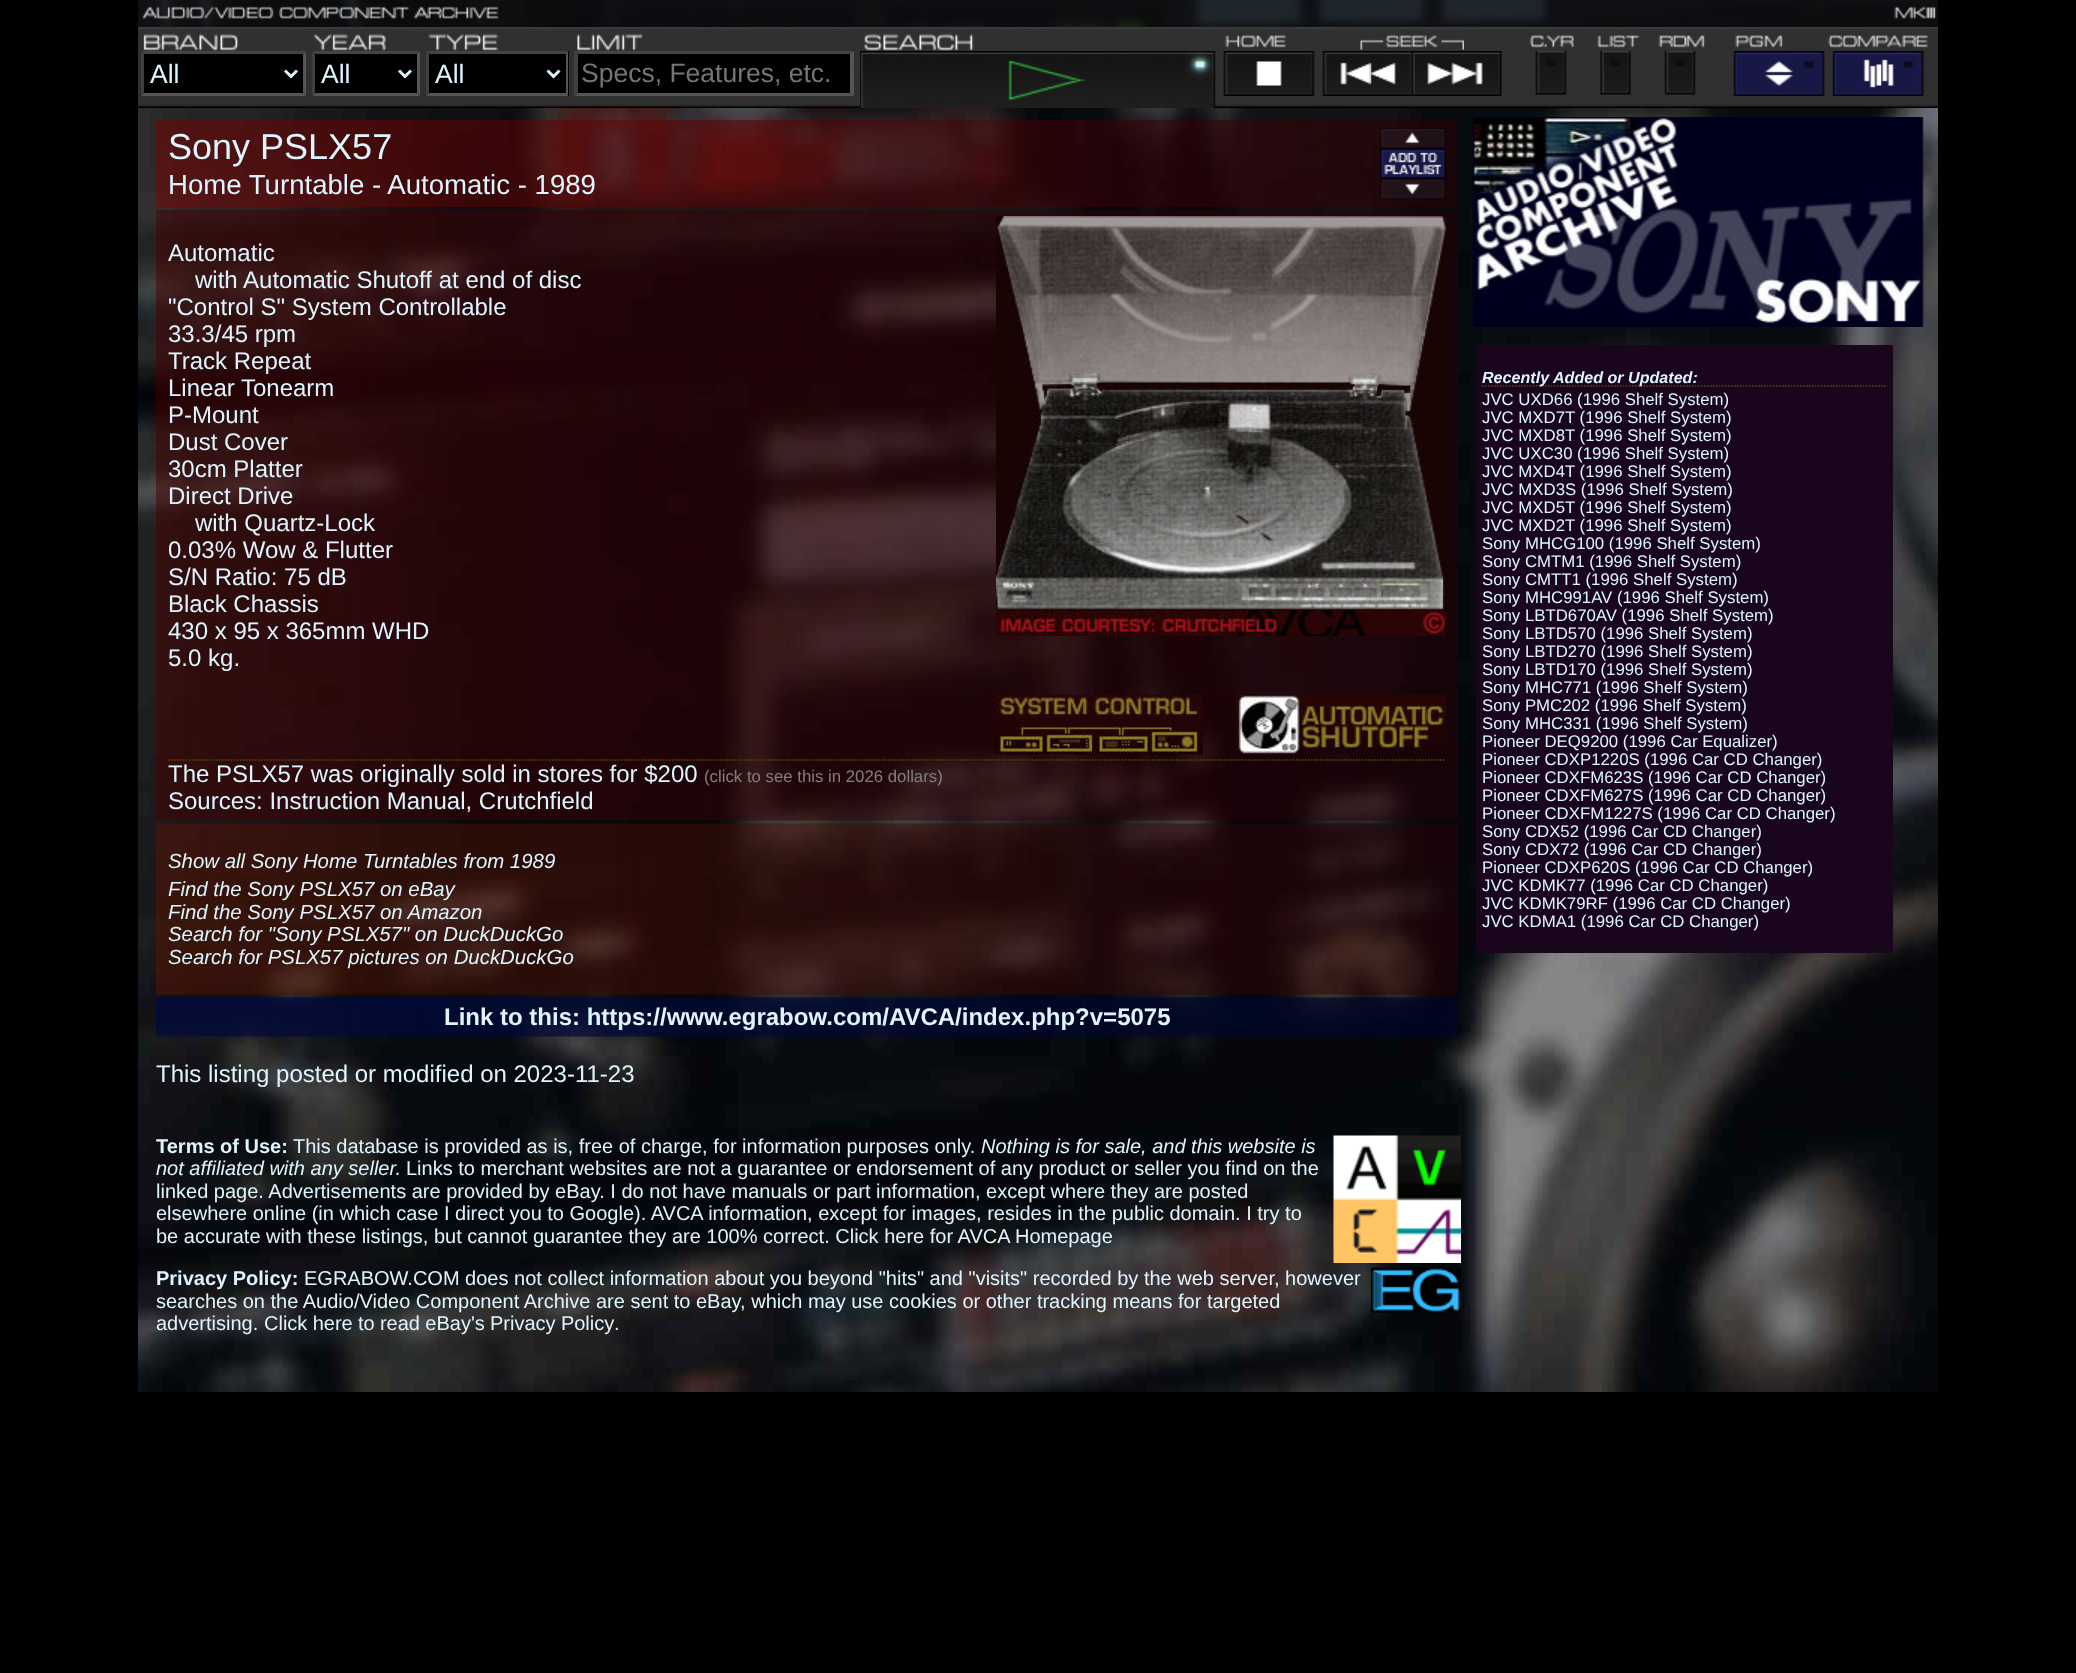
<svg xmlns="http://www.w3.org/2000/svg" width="2076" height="1673">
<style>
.a{font:26.5px Liberation Sans;fill:#def5ff}
.b{font:26.5px Liberation Sans;fill:#757575}
.c{font:36px Liberation Sans;fill:#def5ff}
.d{font:27.6px Liberation Sans;fill:#def5ff}
.e{font:24px Liberation Sans;fill:#def5ff}
.f{font:16.8px Liberation Sans;fill:#808080}
.g{font:italic 20.4px Liberation Sans;fill:#def5ff}
.h{font:bold 24px Liberation Sans;fill:#def5ff}
.i{font:bold 20px Liberation Sans;fill:#def5ff}
.j{font:20px Liberation Sans;fill:#def5ff}
.k{font:italic 20px Liberation Sans;fill:#def5ff}
.l{font:italic bold 16.1px Liberation Sans;fill:#def5ff}
.m{font:16.8px Liberation Sans;fill:#def5ff}
</style>
<rect width="100%" height="100%" fill="#000"/>
<image href="1.png" x="138" y="0" width="1800" height="27"/>
<image href="2.png" x="142" y="6" width="357" height="13"/>
<image href="3.png" x="1894" y="6" width="42" height="13"/>
<image href="4.png" x="138" y="27" width="1800" height="80"/>
<image href="5.png" x="143" y="33" width="96" height="18"/>
<image href="6.png" x="313" y="33" width="73" height="18"/>
<image href="7.png" x="428" y="33" width="71" height="18"/>
<image href="8.png" x="577" y="33" width="66" height="18"/>
<image href="9.png" x="863" y="33" width="111" height="18"/>
<image href="10.png" x="1225" y="34" width="61" height="14"/>
<image href="11.png" x="1360" y="34" width="104" height="16"/>
<image href="12.png" x="1529" y="34" width="45" height="14"/>
<image href="13.png" x="1597" y="34" width="43" height="14"/>
<image href="14.png" x="1658" y="35" width="47" height="13"/>
<image href="15.png" x="1735" y="34" width="48" height="14"/>
<image href="16.png" x="1828" y="34" width="100" height="14"/>
<path fill="#000" d="M141 51h165v45H141z"/>
<path fill="#444" d="M141 51h165l-3 3h-159z"/>
<path fill="#555" d="M306 51v45l-3-3v-39z"/>
<path fill="#555" d="M306 96h-165l3-3h159z"/>
<path fill="#404040" d="M141 96v-45l3 3v39z"/>
<path fill="none" stroke="#def5ff" stroke-width="3" d="M285 70.5l6 6l6-6"/>
<path fill="#000" d="M312 51h108v45H312z"/>
<path fill="#444" d="M312 51h108l-3 3h-102z"/>
<path fill="#555" d="M420 51v45l-3-3v-39z"/>
<path fill="#555" d="M420 96h-108l3-3h102z"/>
<path fill="#404040" d="M312 96v-45l3 3v39z"/>
<path fill="none" stroke="#def5ff" stroke-width="3" d="M399 70.5l6 6l6-6"/>
<path fill="#000" d="M426 51h143v45H426z"/>
<path fill="#444" d="M426 51h142l-2 3h-137z"/>
<path fill="#555" d="M568 51v45l-2-3v-39z"/>
<path fill="#555" d="M568 96h-142l3-3h137z"/>
<path fill="#404040" d="M426 96v-45l3 3v39z"/>
<path fill="none" stroke="#def5ff" stroke-width="3" d="M547.5 70.5l6 6l6-6"/>
<path fill="#000" d="M575 51h279v45H575z"/>
<path fill="#444" d="M574 51h280l-4 3h-272z"/>
<path fill="#555" d="M854 51v45l-4-3v-39z"/>
<path fill="#555" d="M854 96h-280l4-3h272z"/>
<path fill="#404040" d="M574 96v-45l4 3v39z"/>
<image href="17.png" x="860" y="51" width="356" height="57"/>
<image href="18.png" x="1223" y="51" width="92" height="45"/>
<image href="19.png" x="1322" y="51" width="90" height="45"/>
<image href="20.png" x="1411" y="51" width="91" height="45"/>
<image href="21.png" x="1535" y="51" width="32" height="44"/>
<image href="22.png" x="1600" y="51" width="31" height="44"/>
<image href="23.png" x="1664" y="51" width="32" height="44"/>
<image href="24.png" x="1733" y="51" width="92" height="45"/>
<image href="25.png" x="1832" y="51" width="92" height="45"/>
<image href="26.png" x="138" y="108" width="1800" height="1284"/>
<image href="27.png" x="156" y="120" width="1302" height="87"/>
<image href="28.png" x="1380" y="127" width="66" height="22"/>
<image href="29.png" x="1380" y="148" width="66" height="31"/>
<image href="30.png" x="1380" y="179" width="66" height="21"/>
<image href="31.png" x="156" y="210" width="1302" height="611"/>
<image href="32.png" x="996" y="216" width="450" height="420"/>
<image href="33.png" x="993" y="694" width="210" height="61"/>
<image href="34.png" x="1236" y="694" width="210" height="61"/>
<path fill="none" stroke="#594e00" stroke-width="1.5" stroke-dasharray="1.5 1.5" d="M168 760h1278"/>
<image href="35.png" x="156" y="823" width="1302" height="172"/>
<image href="36.png" x="156" y="997" width="1302" height="40"/>
<image href="37.png" x="1333" y="1135" width="128" height="128"/>
<image href="38.png" x="1371" y="1267" width="90" height="46"/>
<image href="39.png" x="1472" y="117" width="452" height="210"/>
<path fill="#1a061c" d="M1476 345h417v608H1476z"/>
<path fill="none" stroke="#594e00" stroke-width="1.5" stroke-dasharray="1.5 1.5" d="M1482 386h405"/>
<text class="a" x="150" y="83">All</text>
<text class="a" x="321" y="83">All</text>
<text class="a" x="435" y="83">All</text>
<text class="b" x="581" y="82">Specs, Features, etc.</text>
<text class="c" x="168" y="159">Sony PSLX57</text>
<text class="d" x="168" y="194">Home Turntable - Automatic - 1989</text>
<text class="e" x="168" y="261">Automatic</text>
<text class="e" x="195" y="288">with Automatic Shutoff at end of disc</text>
<text class="e" x="168" y="315">"Control S" System Controllable</text>
<text class="e" x="168" y="342">33.3/45 rpm</text>
<text class="e" x="168" y="369">Track Repeat</text>
<text class="e" x="168" y="396">Linear Tonearm</text>
<text class="e" x="168" y="423">P-Mount</text>
<text class="e" x="168" y="450">Dust Cover</text>
<text class="e" x="168" y="477">30cm Platter</text>
<text class="e" x="168" y="504">Direct Drive</text>
<text class="e" x="195" y="531">with Quartz-Lock</text>
<text class="e" x="168" y="558">0.03% Wow &amp; Flutter</text>
<text class="e" x="168" y="585">S/N Ratio: 75 dB</text>
<text class="e" x="168" y="612">Black Chassis</text>
<text class="e" x="168" y="639">430 x 95 x 365mm WHD</text>
<text class="e" x="168" y="666">5.0 kg.</text>
<text class="e" x="168" y="782">The PSLX57 was originally sold in stores for $200</text>
<text class="f" x="704" y="782">(click to see this in 2026 dollars)</text>
<text class="e" x="168" y="809">Sources: Instruction Manual, Crutchfield</text>
<text class="g" x="168" y="868">Show all Sony Home Turntables from 1989</text>
<text class="g" x="168" y="896">Find the Sony PSLX57 on eBay</text>
<text class="g" x="168" y="919">Find the Sony PSLX57 on Amazon</text>
<text class="g" x="168" y="941">Search for "Sony PSLX57" on DuckDuckGo</text>
<text class="g" x="168" y="964">Search for PSLX57 pictures on DuckDuckGo</text>
<text class="h" x="444" y="1025">Link to this: https://www.egrabow.com/AVCA/index.php?v=5075</text>
<text class="e" x="156" y="1082">This listing posted or modified on 2023-11-23</text>
<text class="i" x="156" y="1153">Terms of Use:</text>
<text class="j" x="293" y="1153">This database is provided as is, free of charge, for information purposes only.</text>
<text class="k" x="981" y="1153">Nothing is for sale, and this website is</text>
<text class="k" x="156" y="1175">not affiliated with any seller.</text>
<text class="j" x="406" y="1175">Links to merchant websites are not a guarantee or endorsement of any product or seller you find on the</text>
<text class="j" x="156" y="1198">linked page. Advertisements are provided by eBay. I do not have manuals or part information, except where they are posted</text>
<text class="j" x="156" y="1220">elsewhere online (in which case I direct you to Google). AVCA information, except for images, resides in the public domain. I try to</text>
<text class="j" x="156" y="1243">be accurate with these listings, but cannot guarantee they are 100% correct. Click here for AVCA Homepage</text>
<text class="i" x="156" y="1285">Privacy Policy:</text>
<text class="j" x="304" y="1285">EGRABOW.COM does not collect information about you beyond "hits" and "visits" recorded by the web server, however</text>
<text class="j" x="156" y="1308">searches on the Audio/Video Component Archive are sent to eBay, which may use cookies or other tracking means for targeted</text>
<text class="j" x="156" y="1330">advertising.</text>
<text class="j" x="264" y="1330" word-spacing="-0.25">Click here to read eBay's Privacy Policy</text>
<text class="j" x="614" y="1330">.</text>
<text class="l" x="1482" y="383">Recently Added or Updated:</text>
<text class="m" x="1482" y="405">JVC UXD66 (1996 Shelf System)</text>
<text class="m" x="1482" y="423">JVC MXD7T (1996 Shelf System)</text>
<text class="m" x="1482" y="441">JVC MXD8T (1996 Shelf System)</text>
<text class="m" x="1482" y="459">JVC UXC30 (1996 Shelf System)</text>
<text class="m" x="1482" y="477">JVC MXD4T (1996 Shelf System)</text>
<text class="m" x="1482" y="495">JVC MXD3S (1996 Shelf System)</text>
<text class="m" x="1482" y="513">JVC MXD5T (1996 Shelf System)</text>
<text class="m" x="1482" y="531">JVC MXD2T (1996 Shelf System)</text>
<text class="m" x="1482" y="549">Sony MHCG100 (1996 Shelf System)</text>
<text class="m" x="1482" y="567">Sony CMTM1 (1996 Shelf System)</text>
<text class="m" x="1482" y="585">Sony CMTT1 (1996 Shelf System)</text>
<text class="m" x="1482" y="603">Sony MHC991AV (1996 Shelf System)</text>
<text class="m" x="1482" y="621">Sony LBTD670AV (1996 Shelf System)</text>
<text class="m" x="1482" y="639">Sony LBTD570 (1996 Shelf System)</text>
<text class="m" x="1482" y="657">Sony LBTD270 (1996 Shelf System)</text>
<text class="m" x="1482" y="675">Sony LBTD170 (1996 Shelf System)</text>
<text class="m" x="1482" y="693">Sony MHC771 (1996 Shelf System)</text>
<text class="m" x="1482" y="711">Sony PMC202 (1996 Shelf System)</text>
<text class="m" x="1482" y="729">Sony MHC331 (1996 Shelf System)</text>
<text class="m" x="1482" y="747">Pioneer DEQ9200 (1996 Car Equalizer)</text>
<text class="m" x="1482" y="765">Pioneer CDXP1220S (1996 Car CD Changer)</text>
<text class="m" x="1482" y="783">Pioneer CDXFM623S (1996 Car CD Changer)</text>
<text class="m" x="1482" y="801">Pioneer CDXFM627S (1996 Car CD Changer)</text>
<text class="m" x="1482" y="819">Pioneer CDXFM1227S (1996 Car CD Changer)</text>
<text class="m" x="1482" y="837">Sony CDX52 (1996 Car CD Changer)</text>
<text class="m" x="1482" y="855">Sony CDX72 (1996 Car CD Changer)</text>
<text class="m" x="1482" y="873">Pioneer CDXP620S (1996 Car CD Changer)</text>
<text class="m" x="1482" y="891">JVC KDMK77 (1996 Car CD Changer)</text>
<text class="m" x="1482" y="909">JVC KDMK79RF (1996 Car CD Changer)</text>
<text class="m" x="1482" y="927">JVC KDMA1 (1996 Car CD Changer)</text>
</svg>
